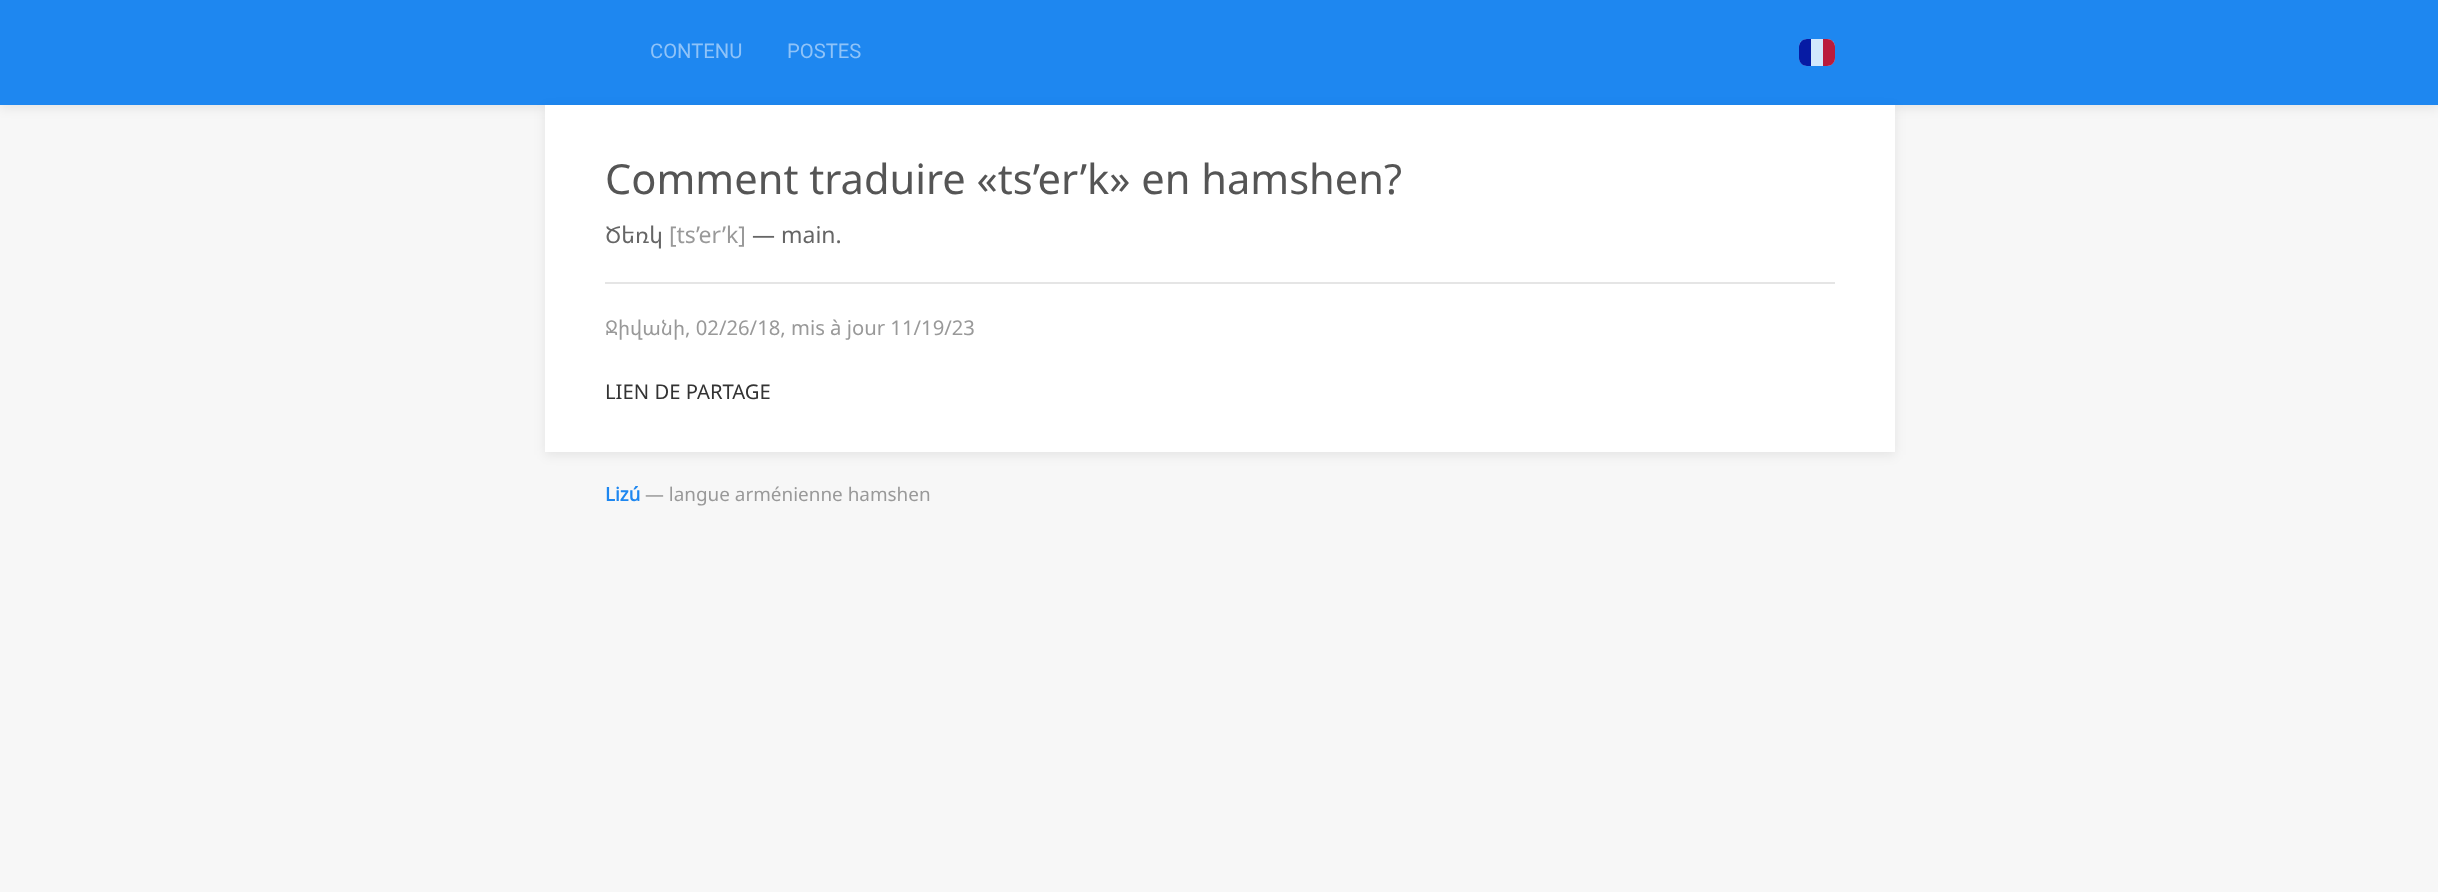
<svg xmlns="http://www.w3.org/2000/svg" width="2438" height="892">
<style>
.a{font:20.25px Roboto;fill:#8fc3f8}
.b{font:41.6px Noto Sans;fill:#555}
.c{font:23px Noto Sans;fill:#666}
.d{font:23px Noto Sans;fill:#999}
.e{font:20.25px Noto Sans;fill:#999}
.f{font:20.25px Noto Sans;fill:#333}
.g{font:bold 18.9px Noto Sans;fill:#1e87f0}
.h{font:18.9px Noto Sans;fill:#999}
</style>
<rect width="100%" height="100%" fill="#f7f7f7"/>
<path fill="#00000014" filter="blur(6px)" d="M0 3h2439v105H0z"/>
<path fill="#1e87f0" d="M0 0h2438v105H0z"/>
<rect fill="#d2e7fc" x="1799" y="39" width="36" height="27" rx="8"/>
<path fill="#061ba4" d="M1807 39h4v27h-4c-4.5 0-8-3.5-8-8v-11c0-4.5 3.5-8 8-8z"/>
<path fill="#ba1b3c" d="M1823 39h4c4.5 0 8 3.5 8 8v11c0 4.5-3.5 8-8 8h-4z"/>
<path fill="#00000014" filter="blur(6px)" d="M545 108h1350v347H545z"/>
<path fill="#fff" d="M545 105h1350v347H545z"/>
<path fill="#e5e5e5" d="M605 282h1230v2H605z"/>
<text class="a" x="650" y="58">CONTENU</text>
<text class="a" x="787" y="58">POSTES</text>
<text class="b" x="605" y="194">Comment traduire «ts’er’k» en hamshen?</text>
<text class="c" x="605" y="243">Ծեռկ</text>
<text class="d" x="669" y="243">[ts’er’k]</text>
<text class="c" x="752" y="243">— main.</text>
<text class="e" x="605" y="335">Ջիվանի, 02/26/18, mis à jour 11/19/23</text>
<text class="f" x="605" y="399">LIEN DE PARTAGE</text>
<text class="g" x="605" y="501">Lizú</text>
<text class="h" x="645" y="501">— langue arménienne hamshen</text>
</svg>
